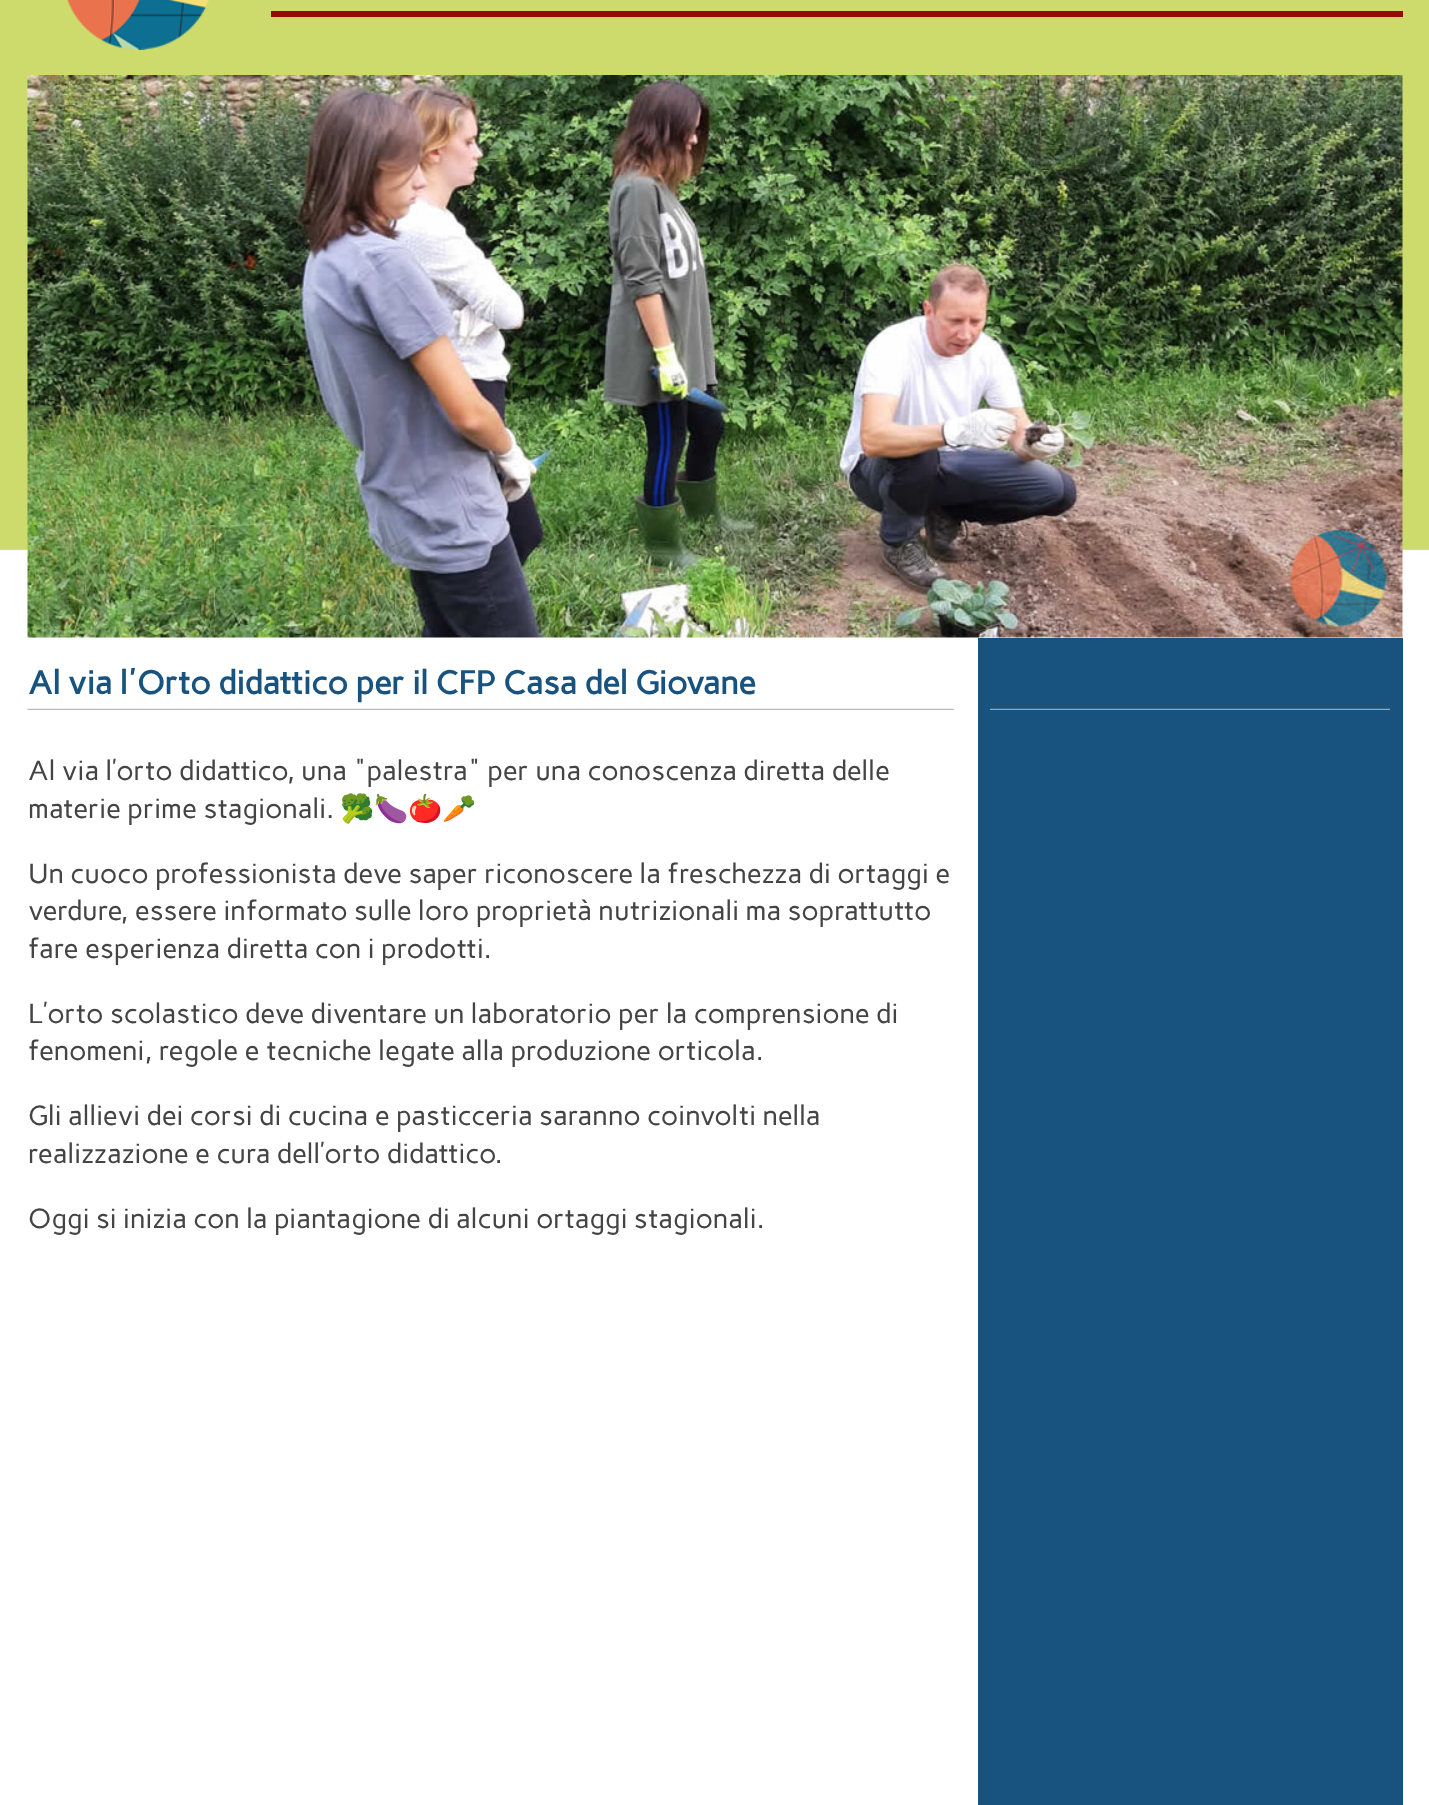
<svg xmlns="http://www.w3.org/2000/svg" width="1429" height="1805">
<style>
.a{font:bold 32.5px Carme;fill:#18537f}
.b{font:27.5px Carme;fill:#444}
.c{font:27.5px Noto Color Emoji;fill:#444}
</style>
<rect width="100%" height="100%" fill="#fff"/>
<image href="1.png" x="0" y="0" width="1429" height="1805"/>
<image href="2.png" x="67" y="0" width="142" height="50"/>
<path fill="#930c09" d="M271 11h1132v6H271z"/>
<image href="3.png" x="27" y="75" width="1376" height="563"/>
<image href="4.png" x="27" y="708" width="927" height="2"/>
<path fill="#18537f" d="M978 638h425v1167H978z"/>
<image href="5.png" x="990" y="708" width="400" height="2"/>
<text class="a" x="28" y="694">Al via l'Orto didattico per il CFP Casa del Giovane</text>
<text class="b" x="28" y="780">Al via l’orto didattico, una "palestra" per una conoscenza diretta delle</text>
<text class="b" x="28" y="818">materie prime stagionali.</text>
<text class="c" x="340" y="818">🥦🍆🍅🥕</text>
<text class="b" x="28" y="883">Un cuoco professionista deve saper riconoscere la freschezza di ortaggi e</text>
<text class="b" x="28" y="920">verdure, essere informato sulle loro proprietà nutrizionali ma soprattutto</text>
<text class="b" x="28" y="958">fare esperienza diretta con i prodotti.</text>
<text class="b" x="28" y="1023">L’orto scolastico deve diventare un laboratorio per la comprensione di</text>
<text class="b" x="28" y="1060">fenomeni, regole e tecniche legate alla produzione orticola.</text>
<text class="b" x="28" y="1125">Gli allievi dei corsi di cucina e pasticceria saranno coinvolti nella</text>
<text class="b" x="28" y="1163">realizzazione e cura dell’orto didattico.</text>
<text class="b" x="28" y="1228">Oggi si inizia con la piantagione di alcuni ortaggi stagionali.</text>
</svg>
